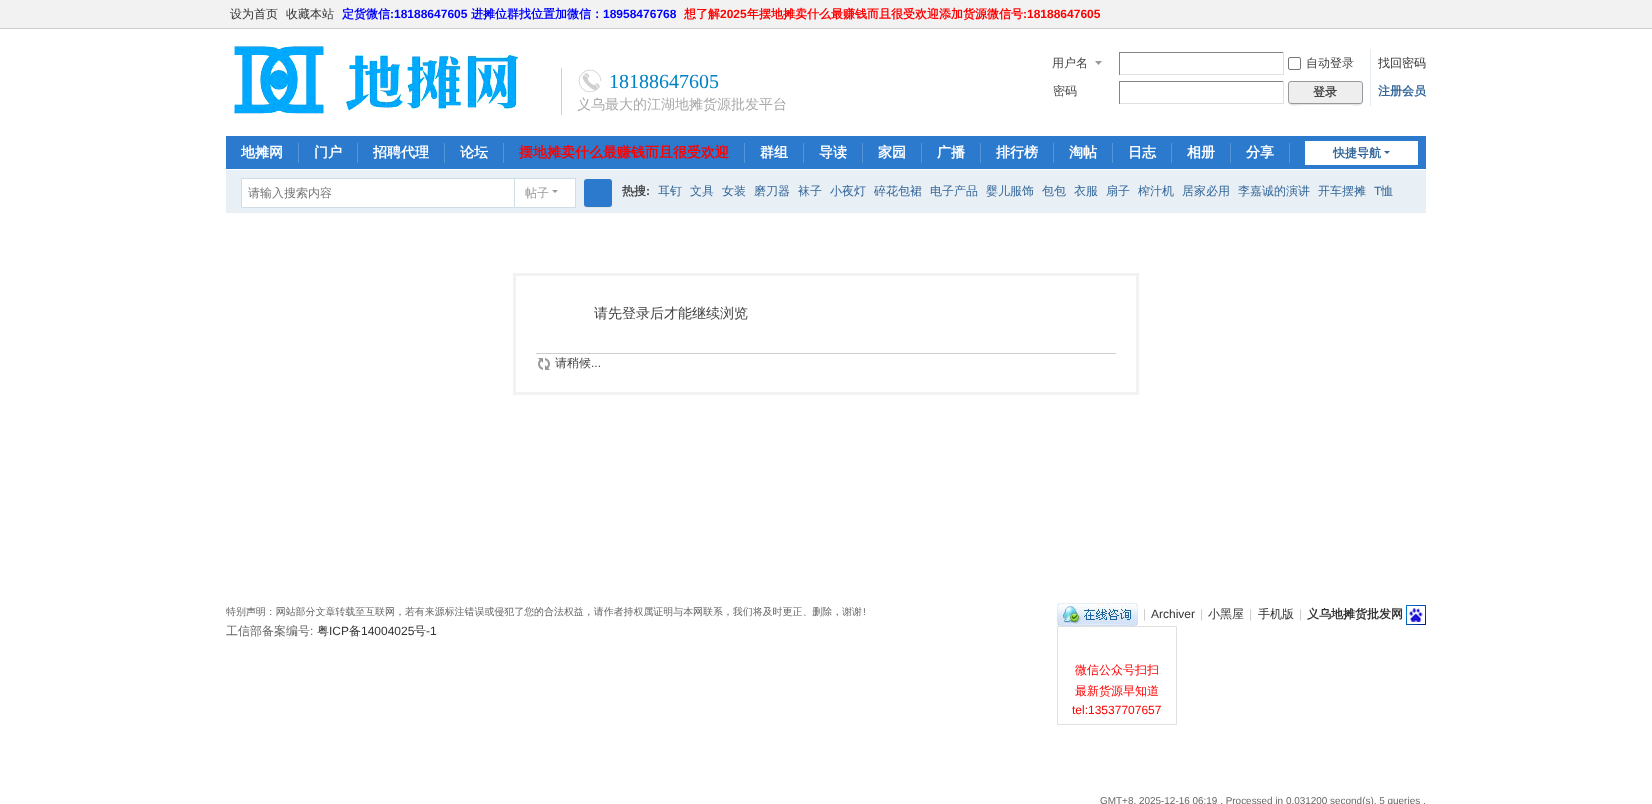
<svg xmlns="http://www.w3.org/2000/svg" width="1652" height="804">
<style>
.a{font:500 12px WenQuanYi Zen Hei;fill:#333}
.b{font:bold 12px WenQuanYi Zen Hei;fill:#00f}
.c{font:bold 12px Liberation Sans;fill:#00f}
.d{font:bold 12px WenQuanYi Zen Hei;fill:#f00}
.e{font:bold 12px Liberation Sans;fill:#f00}
.f{font:20px Liberation Serif;fill:#0081c3}
.g{font:500 14px WenQuanYi Zen Hei;fill:#aaa}
.h{font:500 12px WenQuanYi Zen Hei;fill:#444}
.i{font:bold 12px WenQuanYi Zen Hei;fill:#444}
.j{font:bold 12px WenQuanYi Zen Hei;fill:#369}
.k{font:bold 14px WenQuanYi Zen Hei;fill:#fff}
.l{font:bold 14px WenQuanYi Zen Hei;fill:#f00}
.m{font:500 12px WenQuanYi Zen Hei;fill:#757575}
.n{font:500 12px WenQuanYi Zen Hei;fill:#999}
.o{font:bold 12px Liberation Sans;fill:#444}
.p{font:500 12px WenQuanYi Zen Hei;fill:#369}
.q{font:12px Liberation Sans;fill:#369}
.r{font:500 14px WenQuanYi Zen Hei;fill:#444}
.s{font:12px Liberation Sans;fill:#444}
.t{font:500 9.95px WenQuanYi Zen Hei;fill:#666}
.u{font:9.95px Liberation Sans;fill:#666}
.v{font:500 12px WenQuanYi Zen Hei;fill:#666}
.w{font:12px Liberation Sans;fill:#666}
.x{font:12px Liberation Sans;fill:#333}
.y{font:12px Liberation Sans;fill:#ccc}
.z{font:bold 12px WenQuanYi Zen Hei;fill:#333}
.a1{font:500 12px WenQuanYi Zen Hei;fill:#f00}
.b1{font:12px Liberation Sans;fill:#f00}
</style>
<rect width="100%" height="100%" fill="#fff"/>
<path fill="#f2f2f2" d="M0 0h1652v28H0z"/>
<path fill="#cdcdcd" d="M0 28h1652v1H0z"/>
<image href="1.png" x="233" y="45" width="286" height="70"/>
<path fill="#cfcfcf" d="M561 68h1v47H561z"/>
<image href="2.png" x="578" y="69" width="24" height="24"/>
<path fill="#999" d="M1102 61h-7l3.5 4z"/>
<path fill="#848484" d="M1119 52h165v1H1119z"/>
<path fill="#e0e0e0" d="M1283 52h1v23H1283z"/>
<path fill="#e0e0e0" d="M1119 74h165v1H1119z"/>
<path fill="#848484" d="M1119 52h1v23H1119z"/>
<rect fill="none" stroke="#767676" x="1288.5" y="57.5" width="12" height="12" rx="1.5"/>
<path fill="#848484" d="M1119 81h165v1H1119z"/>
<path fill="#e0e0e0" d="M1283 81h1v23H1283z"/>
<path fill="#e0e0e0" d="M1119 103h165v1H1119z"/>
<path fill="#848484" d="M1119 81h1v23H1119z"/>
<path fill="#e5edf2" d="M1370 49h1v57H1370z"/>
<path fill="#e5e5e5" d="M1288 101c0 7 10 4 14 4h46c5 0 15 3 15-4c0 2-1 3-3 3h-69c-2 0-3-1-3-3z"/>
<rect fill="#eee" stroke="#999" x="1288.5" y="81.5" width="74" height="22" rx="2.5"/>
<path fill="#2b7acd" d="M226 136h1200v33H226z"/>
<path fill="#5595d7" d="M298 143h1v20H298z"/>
<path fill="#5595d7" d="M357 143h1v20H357z"/>
<path fill="#5595d7" d="M444 143h1v20H444z"/>
<path fill="#5595d7" d="M503 143h1v20H503z"/>
<path fill="#5595d7" d="M744 143h1v20H744z"/>
<path fill="#5595d7" d="M803 143h1v20H803z"/>
<path fill="#5595d7" d="M862 143h1v20H862z"/>
<path fill="#5595d7" d="M921 143h1v20H921z"/>
<path fill="#5595d7" d="M980 143h1v20H980z"/>
<path fill="#5595d7" d="M1053 143h1v20H1053z"/>
<path fill="#5595d7" d="M1112 143h1v20H1112z"/>
<path fill="#5595d7" d="M1171 143h1v20H1171z"/>
<path fill="#5595d7" d="M1230 143h1v20H1230z"/>
<path fill="#5595d7" d="M1289 143h1v20H1289z"/>
<path fill="#fff" d="M1305 141h113v24H1305z"/>
<path fill="#369" d="M1384 151h6l-3 3z"/>
<path fill="#e8eff5" d="M226 170h1200v43H226z"/>
<path fill="#cfdee3" d="M513 178h63v1H513z"/>
<path fill="#cfdee3" d="M575 178h1v30H575z"/>
<path fill="#cfdee3" d="M513 207h63v1H513z"/>
<path fill="#fff" stroke="#cfdee3" d="M241.5 178.5h273v29H241.5z"/>
<path fill="#fff" d="M515 179h60v28H515z"/>
<path fill="#999" d="M552 190h6l-3 3z"/>
<path fill="#e5e5e5" d="M584 204c0 4.5 3 4 6.5 4h15c3.5 0 6.5 .5 6.5-4c0 1.5-1.5 3-3 3h-22c-1.5 0-3-1.5-3-3z"/>
<rect fill="#2b7acd" x="584" y="179" width="28" height="28" rx="3"/>
<path fill="none" stroke="#f2f2f2" stroke-width="3" d="M514.5 274.5h623v119H514.5z"/>
<path fill="#cdcdcd" d="M536 353h580v1H536z"/>
<image href="3.png" x="538" y="358" width="12" height="12"/>
<image href="4.png" x="1057" y="603" width="81" height="23"/>
<image href="5.png" x="1406" y="605" width="20" height="20"/>
<path fill="none" stroke="#e0e0e0" d="M1057.5 626.5h119v98H1057.5z"/>
<text class="a" x="230" y="18">设为首页</text>
<text class="a" x="286" y="18">收藏本站</text>
<text class="b" x="342" y="18">定货微信</text>
<text class="c" x="390" y="18">:18188647605</text>
<text class="b" x="471" y="18">进摊位群找位置加微信：</text>
<text class="c" x="603" y="18">18958476768</text>
<text class="d" x="684" y="18">想了解</text>
<text class="e" x="720" y="18">2025</text>
<text class="d" x="747" y="18">年摆地摊卖什么最赚钱而且很受欢迎添加货源微信号</text>
<text class="e" x="1023" y="18">:18188647605</text>
<text class="f" x="609" y="88">18188647605</text>
<text class="g" x="577" y="109">义乌最大的江湖地摊货源批发平台</text>
<text class="h" x="1052" y="67">用户名</text>
<text class="h" x="1306" y="67">自动登录</text>
<text class="a" x="1378" y="67">找回密码</text>
<text class="h" x="1053" y="95">密码</text>
<text class="i" x="1313" y="96">登录</text>
<text class="j" x="1378" y="95">注册会员</text>
<text class="k" x="241" y="157">地摊网</text>
<text class="k" x="314" y="157">门户</text>
<text class="k" x="373" y="157">招聘代理</text>
<text class="k" x="460" y="157">论坛</text>
<text class="l" x="519" y="157">摆地摊卖什么最赚钱而且很受欢迎</text>
<text class="k" x="760" y="157">群组</text>
<text class="k" x="819" y="157">导读</text>
<text class="k" x="878" y="157">家园</text>
<text class="k" x="937" y="157">广播</text>
<text class="k" x="996" y="157">排行榜</text>
<text class="k" x="1069" y="157">淘帖</text>
<text class="k" x="1128" y="157">日志</text>
<text class="k" x="1187" y="157">相册</text>
<text class="k" x="1246" y="157">分享</text>
<text class="j" x="1333" y="157">快捷导航</text>
<text class="m" x="248" y="197">请输入搜索内容</text>
<text class="n" x="525" y="197">帖子</text>
<text class="i" x="622" y="195">热搜</text>
<text class="o" x="646" y="195">:</text>
<text class="p" x="658" y="195">耳钉</text>
<text class="p" x="690" y="195">文具</text>
<text class="p" x="722" y="195">女装</text>
<text class="p" x="754" y="195">磨刀器</text>
<text class="p" x="798" y="195">袜子</text>
<text class="p" x="830" y="195">小夜灯</text>
<text class="p" x="874" y="195">碎花包裙</text>
<text class="p" x="930" y="195">电子产品</text>
<text class="p" x="986" y="195">婴儿服饰</text>
<text class="p" x="1042" y="195">包包</text>
<text class="p" x="1074" y="195">衣服</text>
<text class="p" x="1106" y="195">扇子</text>
<text class="p" x="1138" y="195">榨汁机</text>
<text class="p" x="1182" y="195">居家必用</text>
<text class="p" x="1238" y="195">李嘉诚的演讲</text>
<text class="p" x="1318" y="195">开车摆摊</text>
<text class="q" x="1374" y="195">T</text>
<text class="p" x="1381" y="195">恤</text>
<text class="r" x="594" y="318">请先登录后才能继续浏览</text>
<text class="h" x="555" y="367">请稍候</text>
<text class="s" x="591" y="367">...</text>
<text class="t" x="226" y="615">特别声明：网站部分文章转载至互联网，若有来源标注错误或侵犯了您的合法权益，请作者持权属证明与本网联系，我们将及时更正、删除，谢谢</text>
<text class="u" x="863" y="615">!</text>
<text class="v" x="226" y="635">工信部备案编号</text>
<text class="w" x="310" y="635">:</text>
<text class="a" x="317" y="635">粤</text>
<text class="x" x="329" y="635">ICP</text>
<text class="a" x="349" y="635">备</text>
<text class="x" x="361" y="635">14004025</text>
<text class="a" x="414" y="635">号</text>
<text class="x" x="426" y="635">-1</text>
<text class="y" x="1143" y="618">|</text>
<text class="x" x="1151" y="618">Archiver</text>
<text class="y" x="1200" y="618">|</text>
<text class="a" x="1208" y="618">小黑屋</text>
<text class="y" x="1249" y="618">|</text>
<text class="a" x="1258" y="618">手机版</text>
<text class="y" x="1299" y="618">|</text>
<text class="z" x="1307" y="618">义乌地摊货批发网</text>
<text class="a1" x="1075" y="674">微信公众号扫扫</text>
<text class="a1" x="1075" y="695">最新货源早知道</text>
<text class="b1" x="1072" y="714">tel:13537707657</text>
<text class="u" x="1100" y="804">GMT+8, 2025-12-16 06:19 , Processed in 0.031200 second(s), 5 queries .</text>
</svg>
